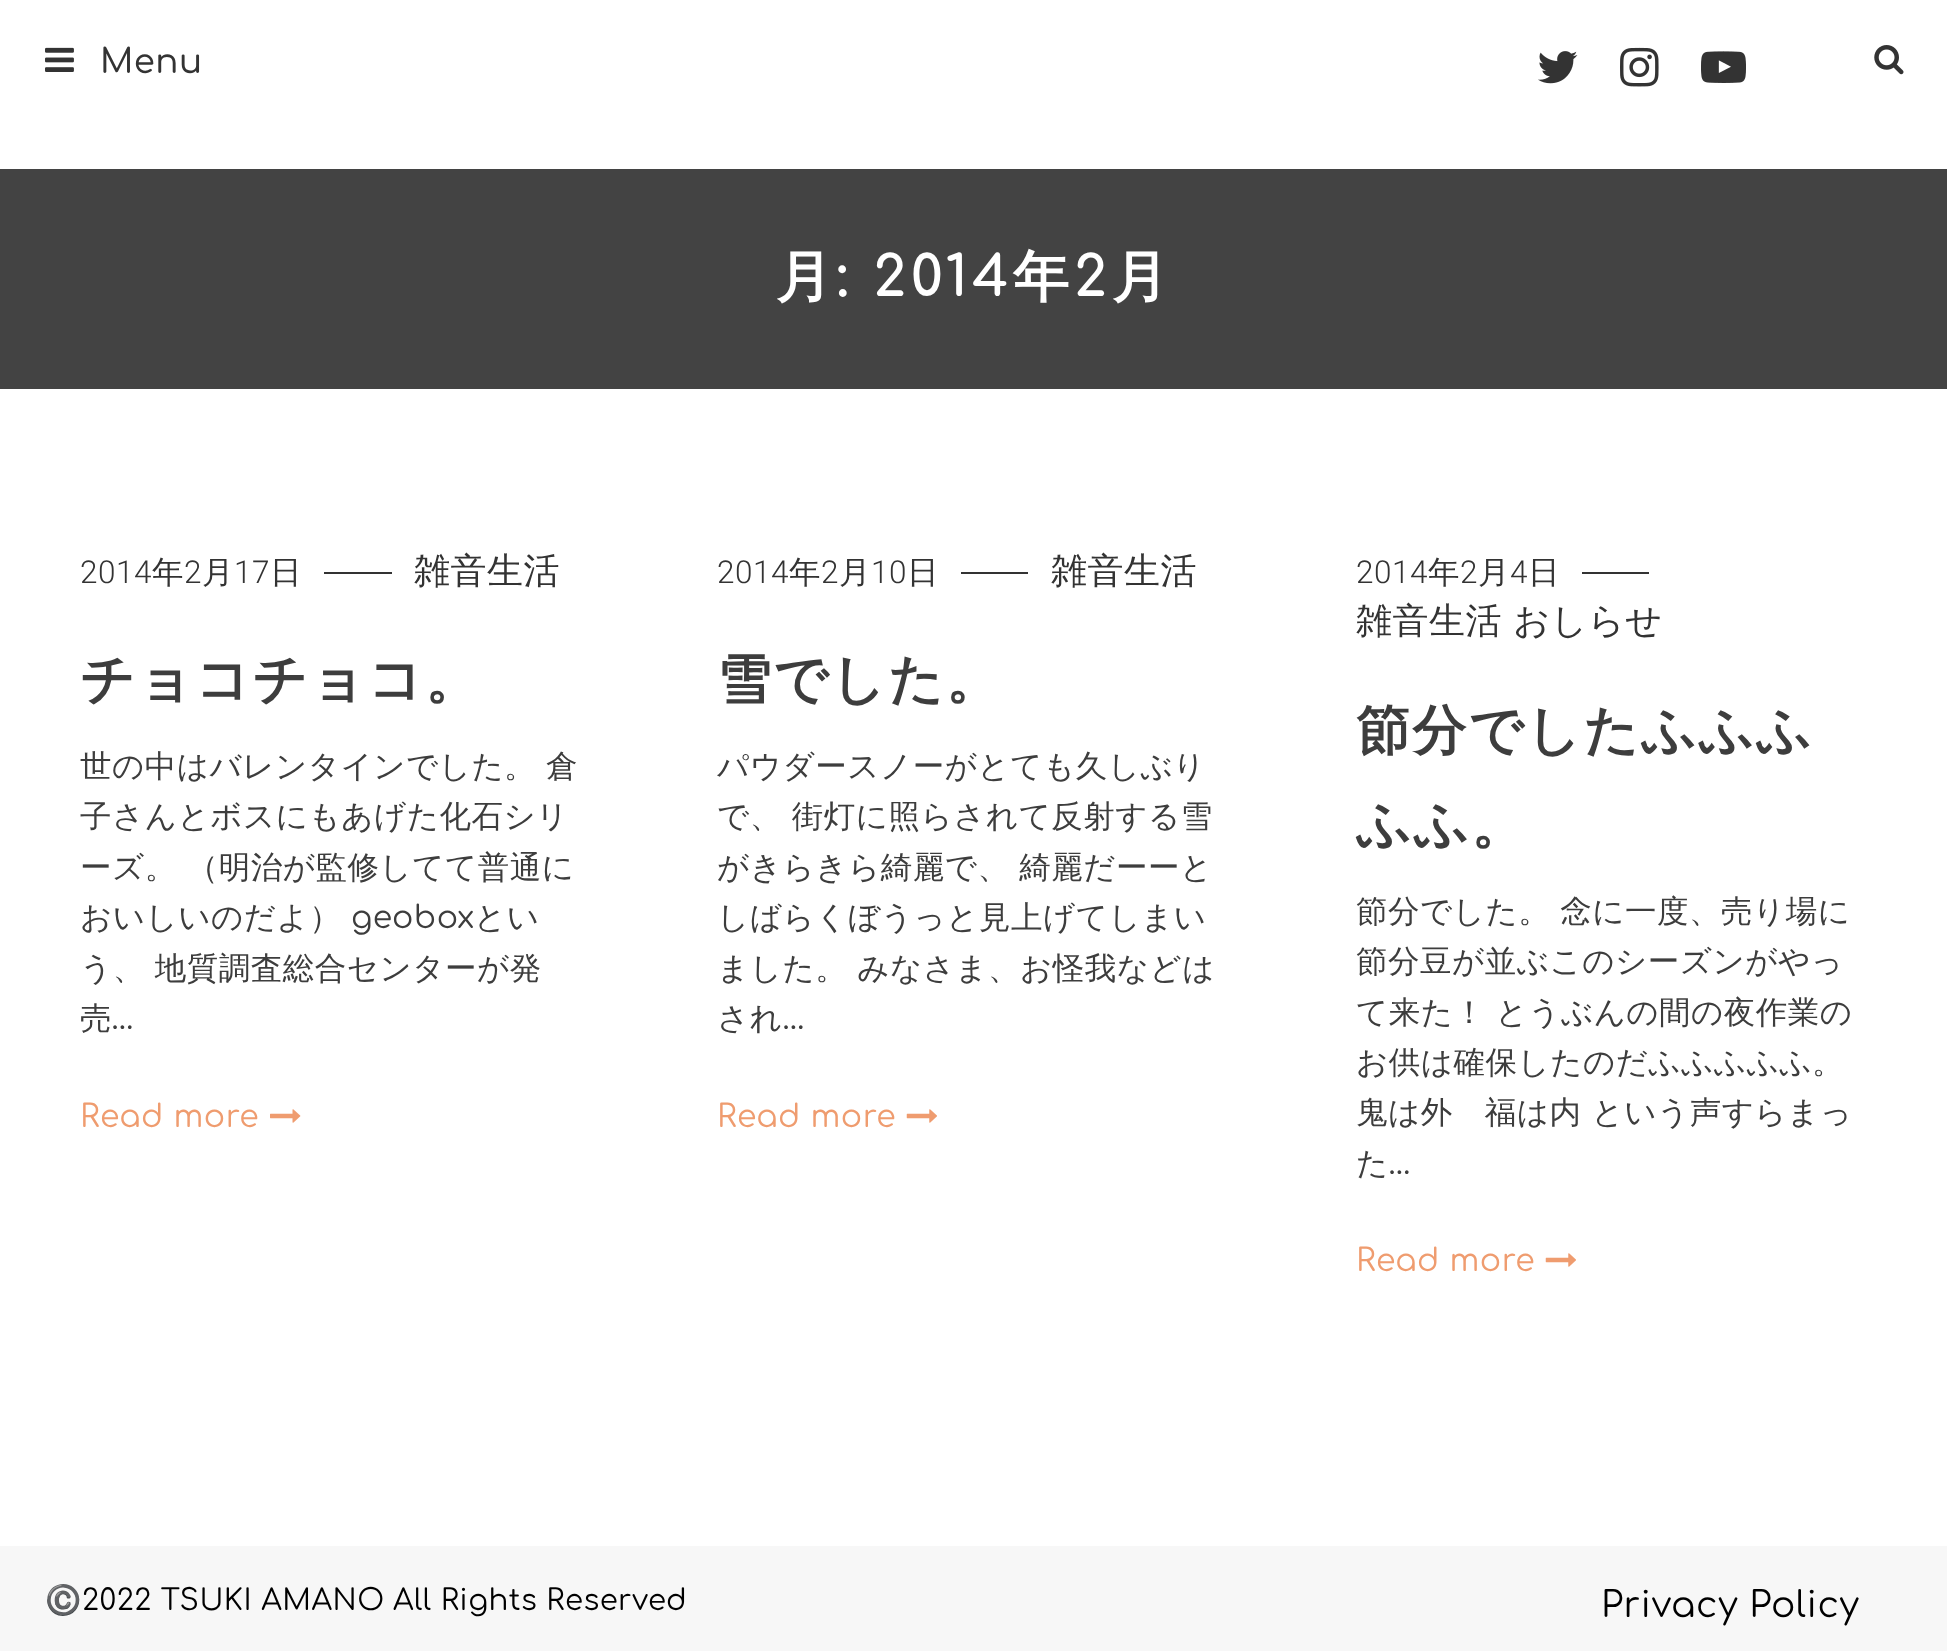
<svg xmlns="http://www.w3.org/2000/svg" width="1947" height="1651">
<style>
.a{font:500 34px Comfortaa;letter-spacing:0.5px;fill:#333}
.b{font:bold 56px WenQuanYi Zen Hei;letter-spacing:4.5px;fill:#fff}
.c{font:bold 56px Comfortaa;letter-spacing:4.5px;fill:#fff}
.d{font:300 31.5px Roboto;letter-spacing:0.5px;fill:#333}
.e{font:500 31.5px WenQuanYi Zen Hei;letter-spacing:0.5px;fill:#333}
.f{font:500 36px WenQuanYi Zen Hei;letter-spacing:0.5px;fill:#333}
.g{font:bold 54px WenQuanYi Zen Hei;letter-spacing:2.25px;fill:#3d3d3d}
.h{font:500 31.5px WenQuanYi Zen Hei;letter-spacing:0.5px;fill:#3d3d3d}
.i{font:31.5px Comfortaa;letter-spacing:0.5px;fill:#3d3d3d}
.j{font:31.5px Comfortaa;letter-spacing:0.5px;fill:#ef9c6f}
.k{font:29.25px Noto Color Emoji;letter-spacing:0.5px;fill:#000}
.l{font:29.25px Comfortaa;letter-spacing:0.5px;fill:#000}
.m{font:36px Comfortaa;letter-spacing:0.5px;fill:#000}
</style>
<rect width="100%" height="100%" fill="#fff"/>
<image href="1.png" x="45" y="47" width="29" height="25"/>
<image href="2.png" x="1538" y="51" width="40" height="33"/>
<image href="3.png" x="1620" y="47" width="39" height="40"/>
<image href="4.png" x="1701" y="51" width="45" height="32"/>
<image href="5.png" x="1874" y="45" width="30" height="30"/>
<path fill="#434343" d="M0 169h1947v220H0z"/>
<path fill="#333" d="M324 572h68v2H324z"/>
<image href="6.png" x="270" y="1109" width="31" height="14"/>
<path fill="#333" d="M961 572h67v2H961z"/>
<image href="7.png" x="906" y="1109" width="31" height="14"/>
<path fill="#333" d="M1582 572h67v2H1582z"/>
<image href="7.png" x="1545" y="1253" width="31" height="14"/>
<path fill="#f7f7f7" d="M0 1546h1947v105H0z"/>
<text class="a" x="100" y="73">Menu</text>
<text class="b" x="776" y="296">月</text>
<text class="c" x="837" y="296">: 2014</text>
<text class="b" x="1013" y="296">年</text>
<text class="c" x="1074" y="296">2</text>
<text class="b" x="1112" y="296">月</text>
<text class="d" x="80" y="583">2014</text>
<text class="e" x="152" y="583">年</text>
<text class="d" x="184" y="583">2</text>
<text class="e" x="202" y="583">月</text>
<text class="d" x="234" y="583">17</text>
<text class="e" x="270" y="583">日</text>
<text class="f" x="414" y="583">雑音生活</text>
<text class="g" x="80" y="698">チョコチョコ。</text>
<text class="h" x="80" y="777">世の中はバレンタインでした。 倉</text>
<text class="h" x="80" y="827">子さんとボスにもあげた化石シリ</text>
<text class="h" x="80" y="878">ーズ。 （明治が監修してて普通に</text>
<text class="h" x="80" y="928">おいしいのだよ）</text>
<text class="i" x="351" y="928">geobox</text>
<text class="h" x="474" y="928">とい</text>
<text class="h" x="80" y="979">う、 地質調査総合センターが発</text>
<text class="h" x="80" y="1029">売</text>
<text class="i" x="112" y="1029">…</text>
<text class="j" x="80" y="1127">Read more</text>
<text class="d" x="717" y="583">2014</text>
<text class="e" x="789" y="583">年</text>
<text class="d" x="821" y="583">2</text>
<text class="e" x="839" y="583">月</text>
<text class="d" x="871" y="583">10</text>
<text class="e" x="907" y="583">日</text>
<text class="f" x="1051" y="583">雑音生活</text>
<text class="g" x="717" y="698">雪でした。</text>
<text class="h" x="717" y="777">パウダースノーがとても久しぶり</text>
<text class="h" x="717" y="827">で、 街灯に照らされて反射する雪</text>
<text class="h" x="717" y="878">がきらきら綺麗で、 綺麗だーーと</text>
<text class="h" x="717" y="928">しばらくぼうっと見上げてしまい</text>
<text class="h" x="717" y="979">ました。 みなさま、お怪我などは</text>
<text class="h" x="717" y="1029">され</text>
<text class="i" x="783" y="1029">…</text>
<text class="j" x="717" y="1127">Read more</text>
<text class="d" x="1356" y="583">2014</text>
<text class="e" x="1428" y="583">年</text>
<text class="d" x="1460" y="583">2</text>
<text class="e" x="1478" y="583">月</text>
<text class="d" x="1510" y="583">4</text>
<text class="e" x="1528" y="583">日</text>
<text class="f" x="1356" y="633">雑音生活 おしらせ</text>
<text class="g" x="1356" y="749">節分でしたふふふ</text>
<text class="g" x="1356" y="843">ふふ。</text>
<text class="h" x="1356" y="922">節分でした。 念に一度、売り場に</text>
<text class="h" x="1356" y="972">節分豆が並ぶこのシーズンがやっ</text>
<text class="h" x="1356" y="1023">て来た！ とうぶんの間の夜作業の</text>
<text class="h" x="1356" y="1073">お供は確保したのだふふふふふ。</text>
<text class="h" x="1356" y="1123">鬼は外　福は内 という声すらまっ</text>
<text class="h" x="1356" y="1174">た</text>
<text class="i" x="1389" y="1174">…</text>
<text class="j" x="1356" y="1271">Read more</text>
<text class="k" x="45" y="1610">©️</text>
<text class="l" x="82" y="1610">2022 TSUKI AMANO</text>
<text class="l" x="393" y="1610">All Rights Reserved</text>
<text class="m" x="1601" y="1617">Privacy Policy</text>
</svg>
